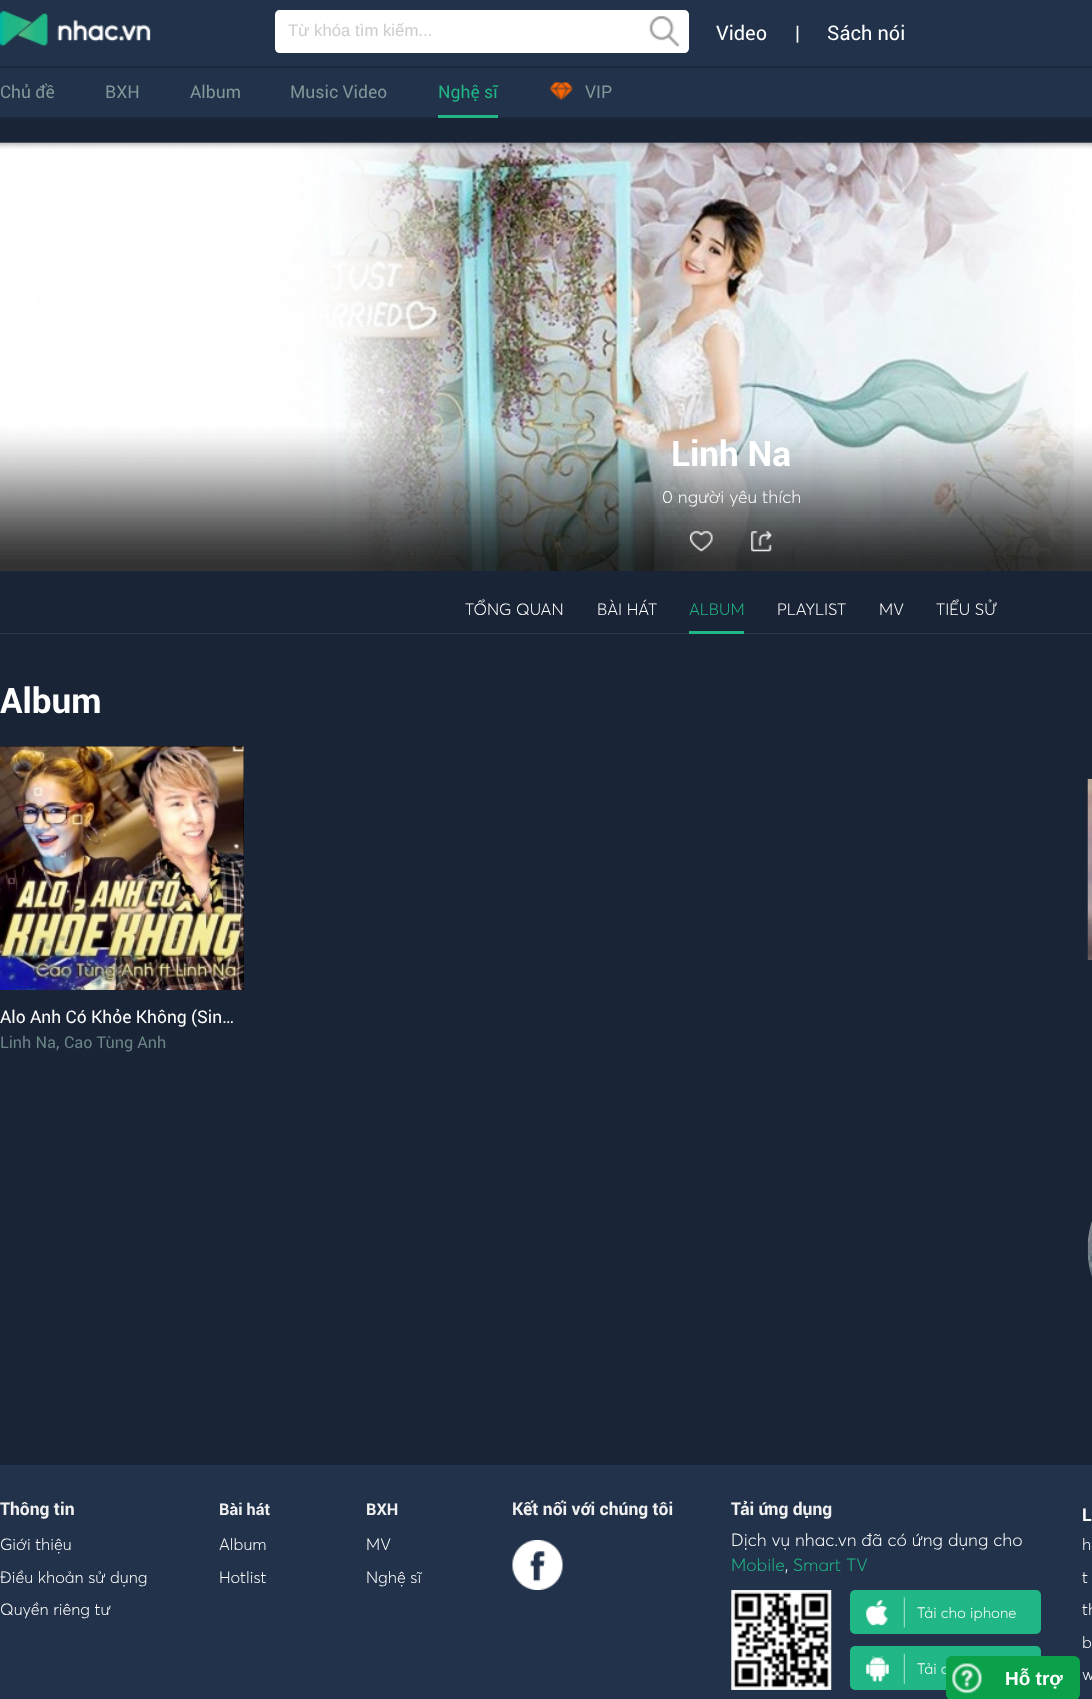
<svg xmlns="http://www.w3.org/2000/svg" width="1092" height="1699">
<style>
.a{font:16.75px Liberation Sans;fill:#ccc}
.b{font:20px Roboto;fill:#fff}
.c{font:17.5px Roboto;fill:#829799}
.d{font:17.5px Roboto;fill:#21b685}
.e{font:bold 35px Roboto;fill:#fff}
.f{font:300 17.5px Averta;fill:#fff}
.g{font:300 16.25px Averta;fill:#fff}
.h{font:300 16.25px Averta;fill:#21b685}
.i{font:17.5px Roboto;fill:#fff}
.j{font:16.25px Roboto;fill:#6a8385}
.k{font:17.5px Roboto;fill:#6a8385}
.l{font:bold 17.5px Roboto;fill:#f0f0f1}
.m{font:bold 16.25px Roboto;fill:#f0f0f1}
.n{font:300 17.5px Averta;fill:#21b685}
.o{font:300 15px Averta;fill:#fff}
.p{font:bold 17.5px Roboto;fill:#fff}
.q{font:bold 19px Liberation Sans;fill:#fff}
</style>
<rect width="100%" height="100%" fill="#192536"/>
<image href="1.png" x="0" y="0" width="1092" height="118"/>
<image href="2.png" x="0" y="11" width="151" height="36"/>
<path fill="#fff" d="M280 10h270v43h-270c-3 0-5-2-5-5v-33c0-3 2-5 5-5z"/>
<path fill="#fff" d="M550 10h134c3 0 5 2 5 5v33c0 3-2 5-5 5h-134z"/>
<image href="3.png" x="649" y="16" width="31" height="31"/>
<path fill="#21b685" d="M438 115h60v3H438z"/>
<image href="4.png" x="549" y="82" width="25" height="18"/>
<image href="5.png" x="0" y="142" width="1092" height="429"/>
<image href="6.png" x="0" y="142" width="1092" height="429"/>
<image href="7.png" x="690" y="531" width="23" height="21"/>
<image href="8.png" x="751" y="531" width="21" height="21"/>
<path fill="#303b4a" d="M0 633h1092v1H0z"/>
<path fill="#21b685" d="M689 631h55v3H689z"/>
<path fill="#000" d="M0 746h244v244H0z"/>
<image href="9.png" x="0" y="746" width="244" height="244"/>
<image href="10.png" x="1087" y="778" width="5" height="182"/>
<image href="11.png" x="1087" y="1221" width="5" height="56"/>
<path fill="#21324a" d="M0 1465h1092v234H0z"/>
<image href="12.png" x="512" y="1540" width="51" height="50"/>
<image href="13.png" x="731" y="1590" width="101" height="100"/>
<rect fill="#21b685" x="850" y="1590" width="191" height="44" rx="5"/>
<image href="14.png" x="866" y="1597" width="39" height="31"/>
<rect fill="#21b685" x="850" y="1646" width="191" height="44" rx="5"/>
<image href="15.png" x="866" y="1653" width="39" height="31"/>
<text class="a" x="288" y="36">Từ khóa tìm kiếm...</text>
<text class="b" x="716" y="40">Video</text>
<text class="b" x="795" y="40">|</text>
<text class="b" x="827" y="40">Sách nói</text>
<text class="c" x="0" y="98">Chủ đề</text>
<text class="c" x="105" y="98">BXH</text>
<text class="c" x="190" y="98">Album</text>
<text class="c" x="290" y="98">Music Video</text>
<text class="d" x="438" y="98">Nghệ sĩ</text>
<text class="c" x="585" y="98">VIP</text>
<text class="e" x="671" y="466">Linh Na</text>
<text class="f" x="662" y="503">0 người yêu thích</text>
<text class="g" x="465" y="615">TỔNG QUAN</text>
<text class="g" x="597" y="615">BÀI HÁT</text>
<text class="h" x="689" y="615">ALBUM</text>
<text class="g" x="777" y="615">PLAYLIST</text>
<text class="g" x="879" y="615">MV</text>
<text class="g" x="936" y="615">TIỂU SỬ</text>
<text class="e" x="0" y="713">Album</text>
<text class="i" x="0" y="1023">Alo Anh Có Khỏe Không (Sin…</text>
<text class="j" x="0" y="1048">Linh Na</text>
<text class="k" x="56" y="1048">,</text>
<text class="j" x="64" y="1048">Cao Tùng Anh</text>
<text class="l" x="0" y="1515">Thông tin</text>
<text class="g" x="0" y="1550">Giới thiệu</text>
<text class="g" x="0" y="1583">Điều khoản sử dụng</text>
<text class="g" x="0" y="1615">Quyền riêng tư</text>
<text class="m" x="219" y="1515">Bài hát</text>
<text class="g" x="219" y="1550">Album</text>
<text class="g" x="219" y="1583">Hotlist</text>
<text class="m" x="366" y="1515">BXH</text>
<text class="g" x="366" y="1550">MV</text>
<text class="g" x="366" y="1583">Nghệ sĩ</text>
<text class="l" x="512" y="1515">Kết nối với chúng tôi</text>
<text class="l" x="731" y="1515">Tải ứng dụng</text>
<text class="f" x="731" y="1546">Dịch vụ nhac.vn đã có ứng dụng cho</text>
<text class="n" x="731" y="1571">Mobile</text>
<text class="f" x="785" y="1571">,</text>
<text class="n" x="793" y="1571">Smart TV</text>
<text class="o" x="917" y="1618">Tải cho iphone</text>
<text class="o" x="917" y="1674">Tải c</text>
<text class="p" x="1082" y="1521">L</text>
<text class="g" x="1082" y="1550">h</text>
<text class="g" x="1082" y="1583">t</text>
<text class="g" x="1082" y="1615">th</text>
<text class="g" x="1082" y="1648">b</text>
<text class="g" x="1082" y="1680">w</text>
<rect fill="#0ba14b" x="946" y="1656" width="134" height="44" rx="6"/>
<rect fill="#0ba14b" x="946" y="1656" width="44" height="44" rx="6"/>
<image href="16.png" x="952" y="1663" width="31" height="31"/>
<text class="q" x="1005" y="1685">Hỗ trợ</text>
</svg>
